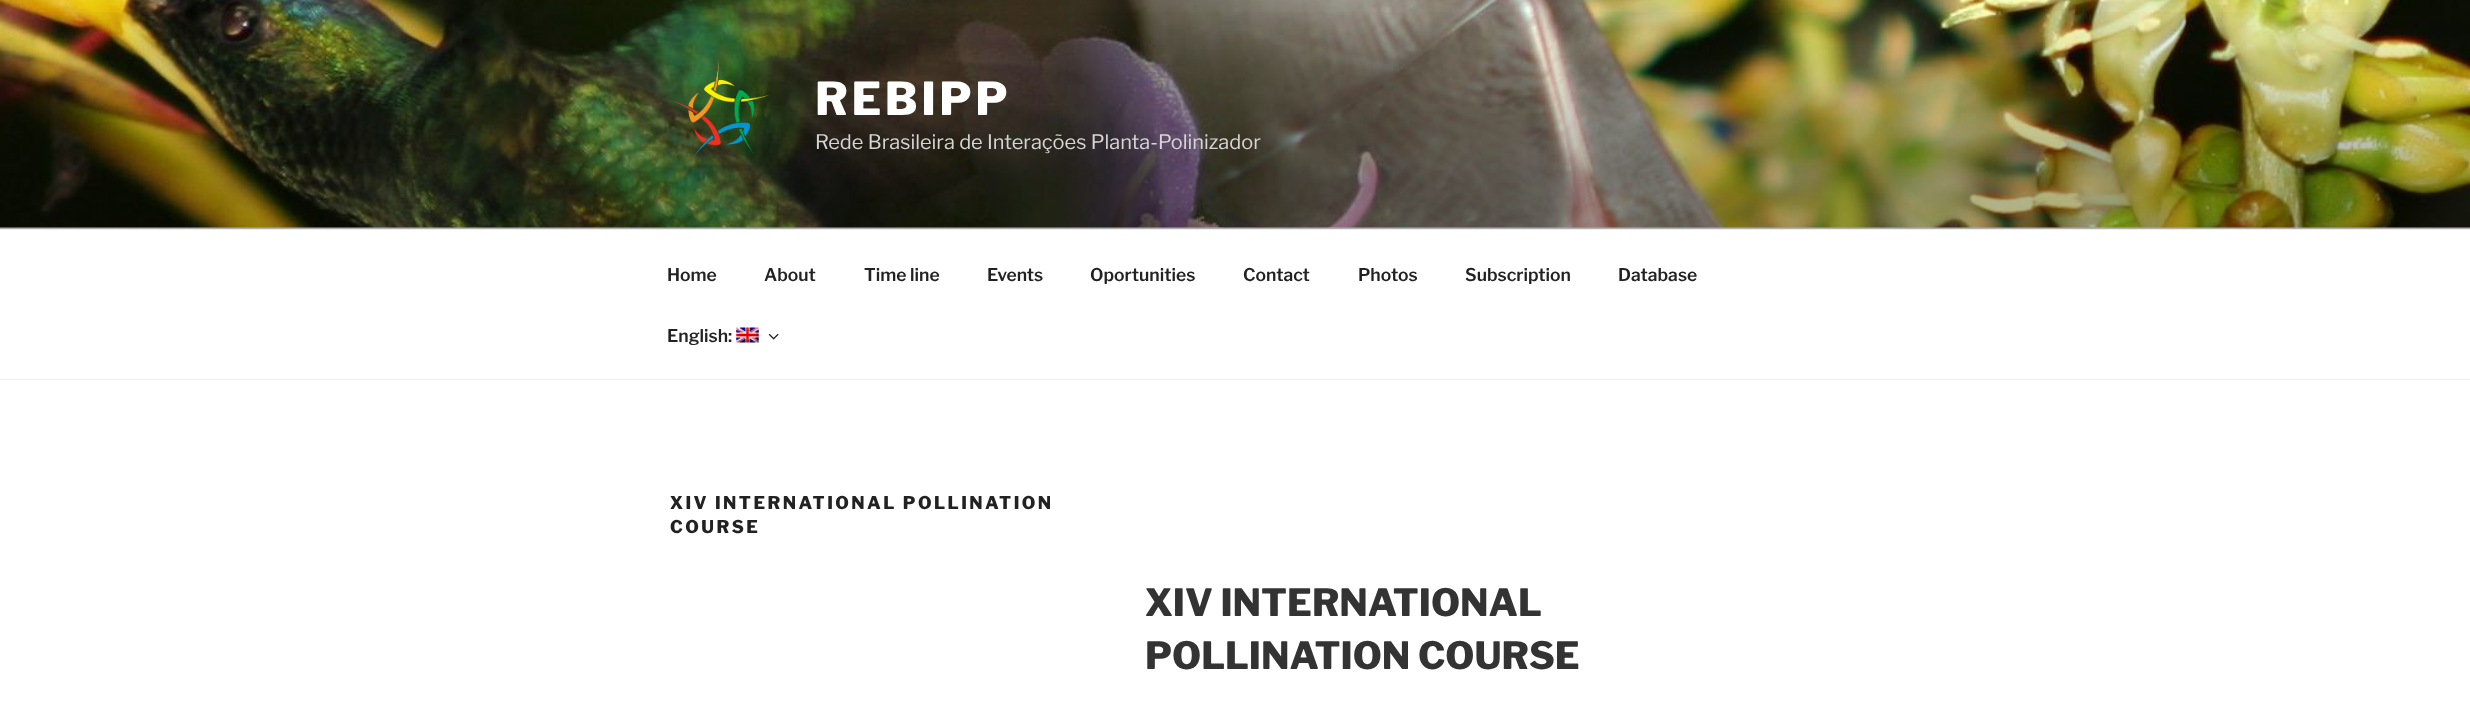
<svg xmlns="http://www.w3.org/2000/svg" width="2470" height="716">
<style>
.a{font:100 45px Libre Franklin;letter-spacing:3.5px;fill:#fff}
.b{font:100 20px 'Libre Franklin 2';fill:#d6d5d4}
.c{font:100 17.5px 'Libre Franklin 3';fill:#222}
.d{font:100 17.5px Libre Franklin;letter-spacing:2.45px;fill:#222}
.e{font:100 37.5px Libre Franklin;fill:#333}
</style>
<defs>
<linearGradient id="g1" gradientUnits="userSpaceOnUse" x1="1235" y1="0" x2="1235" y2="229"><stop offset="0" stop-color="#000" stop-opacity="0"/><stop offset="0.75" stop-color="#000" stop-opacity="0.3"/><stop offset="1" stop-color="#000" stop-opacity="0.3"/></linearGradient>
</defs>
<rect width="100%" height="100%" fill="#fff"/>
<path fill="#fafafa" d="M0 227h2470v2H0z"/>
<image href="1.png" x="0" y="0" width="2470" height="228"/>
<path fill="url(#g1)" d="M0 12h2470v217H0z"/>
<image href="2.png" x="671" y="61" width="99" height="97"/>
<path fill="#eee" d="M0 229h2470v1H0z"/>
<path fill="#eee" d="M0 379h2470v1H0z"/>
<image href="3.png" x="736" y="327" width="23" height="16"/>
<image href="4.png" x="768" y="333" width="11" height="7"/>
<text class="a" x="815" y="115">REBIPP</text>
<text class="b" x="815" y="149">Rede Brasileira de Interações Planta-Polinizador</text>
<text class="c" x="667" y="281">Home</text>
<text class="c" x="764" y="281">About</text>
<text class="c" x="864" y="281">Time line</text>
<text class="c" x="987" y="281">Events</text>
<text class="c" x="1090" y="281">Oportunities</text>
<text class="c" x="1243" y="281">Contact</text>
<text class="c" x="1358" y="281">Photos</text>
<text class="c" x="1465" y="281">Subscription</text>
<text class="c" x="1618" y="281">Database</text>
<text class="c" x="667" y="342">English:</text>
<text class="d" x="670" y="509">XIV INTERNATIONAL POLLINATION</text>
<text class="d" x="670" y="533">COURSE</text>
<text class="e" x="1145" y="616">XIV INTERNATIONAL</text>
<text class="e" x="1145" y="669">POLLINATION COURSE</text>
</svg>
